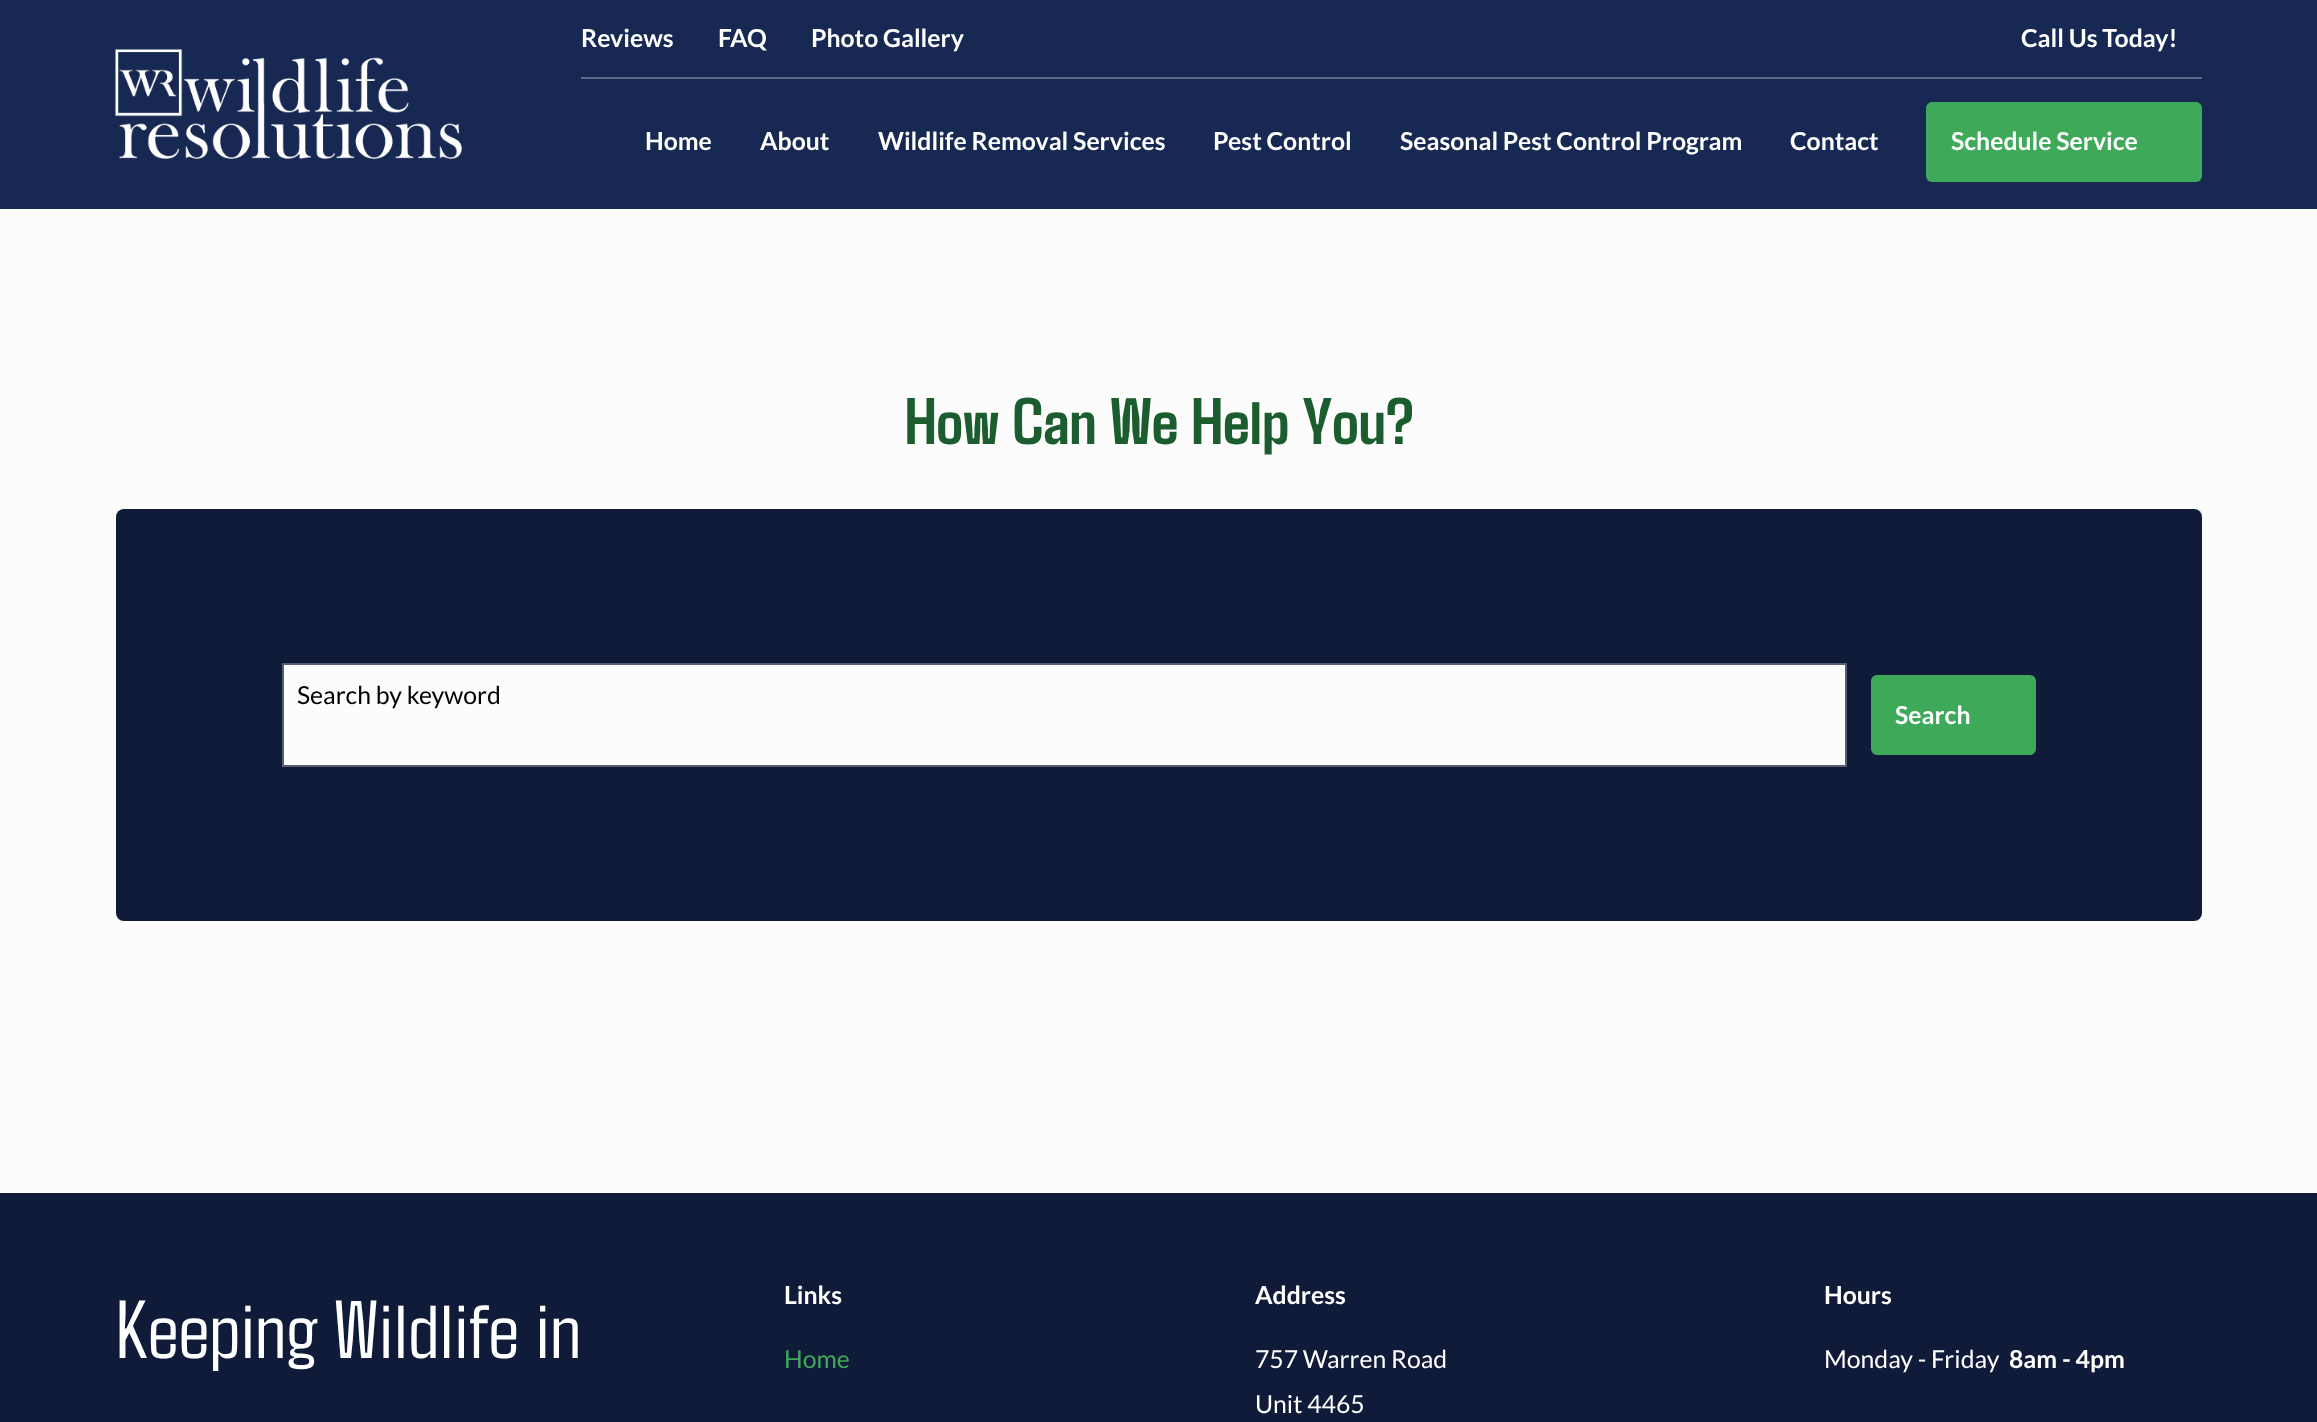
<svg xmlns="http://www.w3.org/2000/svg" width="2317" height="1422">
<style>
.a{font:bold 24.75px Lato;fill:#fff}
.b{font:bold 66px Agdasima;fill:#1c5d2f}
.c{font:24.75px Lato;fill:#000}
.d{font:82.5px Agdasima;fill:#fff}
.e{font:24.75px Lato;fill:#3da959}
.f{font:24.75px Lato;fill:#fff}
</style>
<rect width="100%" height="100%" fill="#fcfcfc"/>
<path fill="#172853" d="M0 0h2317v209H0z"/>
<image href="1.png" x="115" y="49" width="347" height="110"/>
<path fill="#5d6987" d="M581 77h1621v2H581z"/>
<rect fill="#3da959" x="1926" y="102" width="276" height="80" rx="6"/>
<rect fill="#0f1b38" x="116" y="509" width="2086" height="412" rx="8"/>
<path fill="#fcfcfc" stroke="#575f74" stroke-width="2" d="M283 664h1563v102H283z"/>
<rect fill="#3da959" x="1871" y="675" width="165" height="80" rx="6"/>
<path fill="#0f1b38" d="M0 1193h2317v229H0z"/>
<text class="a" x="581" y="47">Reviews</text>
<text class="a" x="718" y="47">FAQ</text>
<text class="a" x="811" y="47">Photo Gallery</text>
<text class="a" x="2021" y="47">Call Us Today!</text>
<text class="a" x="645" y="150">Home</text>
<text class="a" x="760" y="150">About</text>
<text class="a" x="878" y="150">Wildlife Removal Services</text>
<text class="a" x="1213" y="150">Pest Control</text>
<text class="a" x="1400" y="150">Seasonal Pest Control Program</text>
<text class="a" x="1790" y="150">Contact</text>
<text class="a" x="1951" y="150">Schedule Service</text>
<text class="b" x="905" y="444">How Can We Help You?</text>
<text class="c" x="297" y="704">Search by keyword</text>
<text class="a" x="1895" y="724">Search</text>
<text class="d" x="116" y="1358">Keeping Wildlife in</text>
<text class="a" x="784" y="1304">Links</text>
<text class="e" x="784" y="1368">Home</text>
<text class="a" x="1255" y="1304">Address</text>
<text class="f" x="1255" y="1368">757 Warren Road</text>
<text class="f" x="1255" y="1413">Unit 4465</text>
<text class="a" x="1824" y="1304">Hours</text>
<text class="f" x="1824" y="1368">Monday - Friday</text>
<text class="a" x="2009" y="1368">8am - 4pm</text>
</svg>
